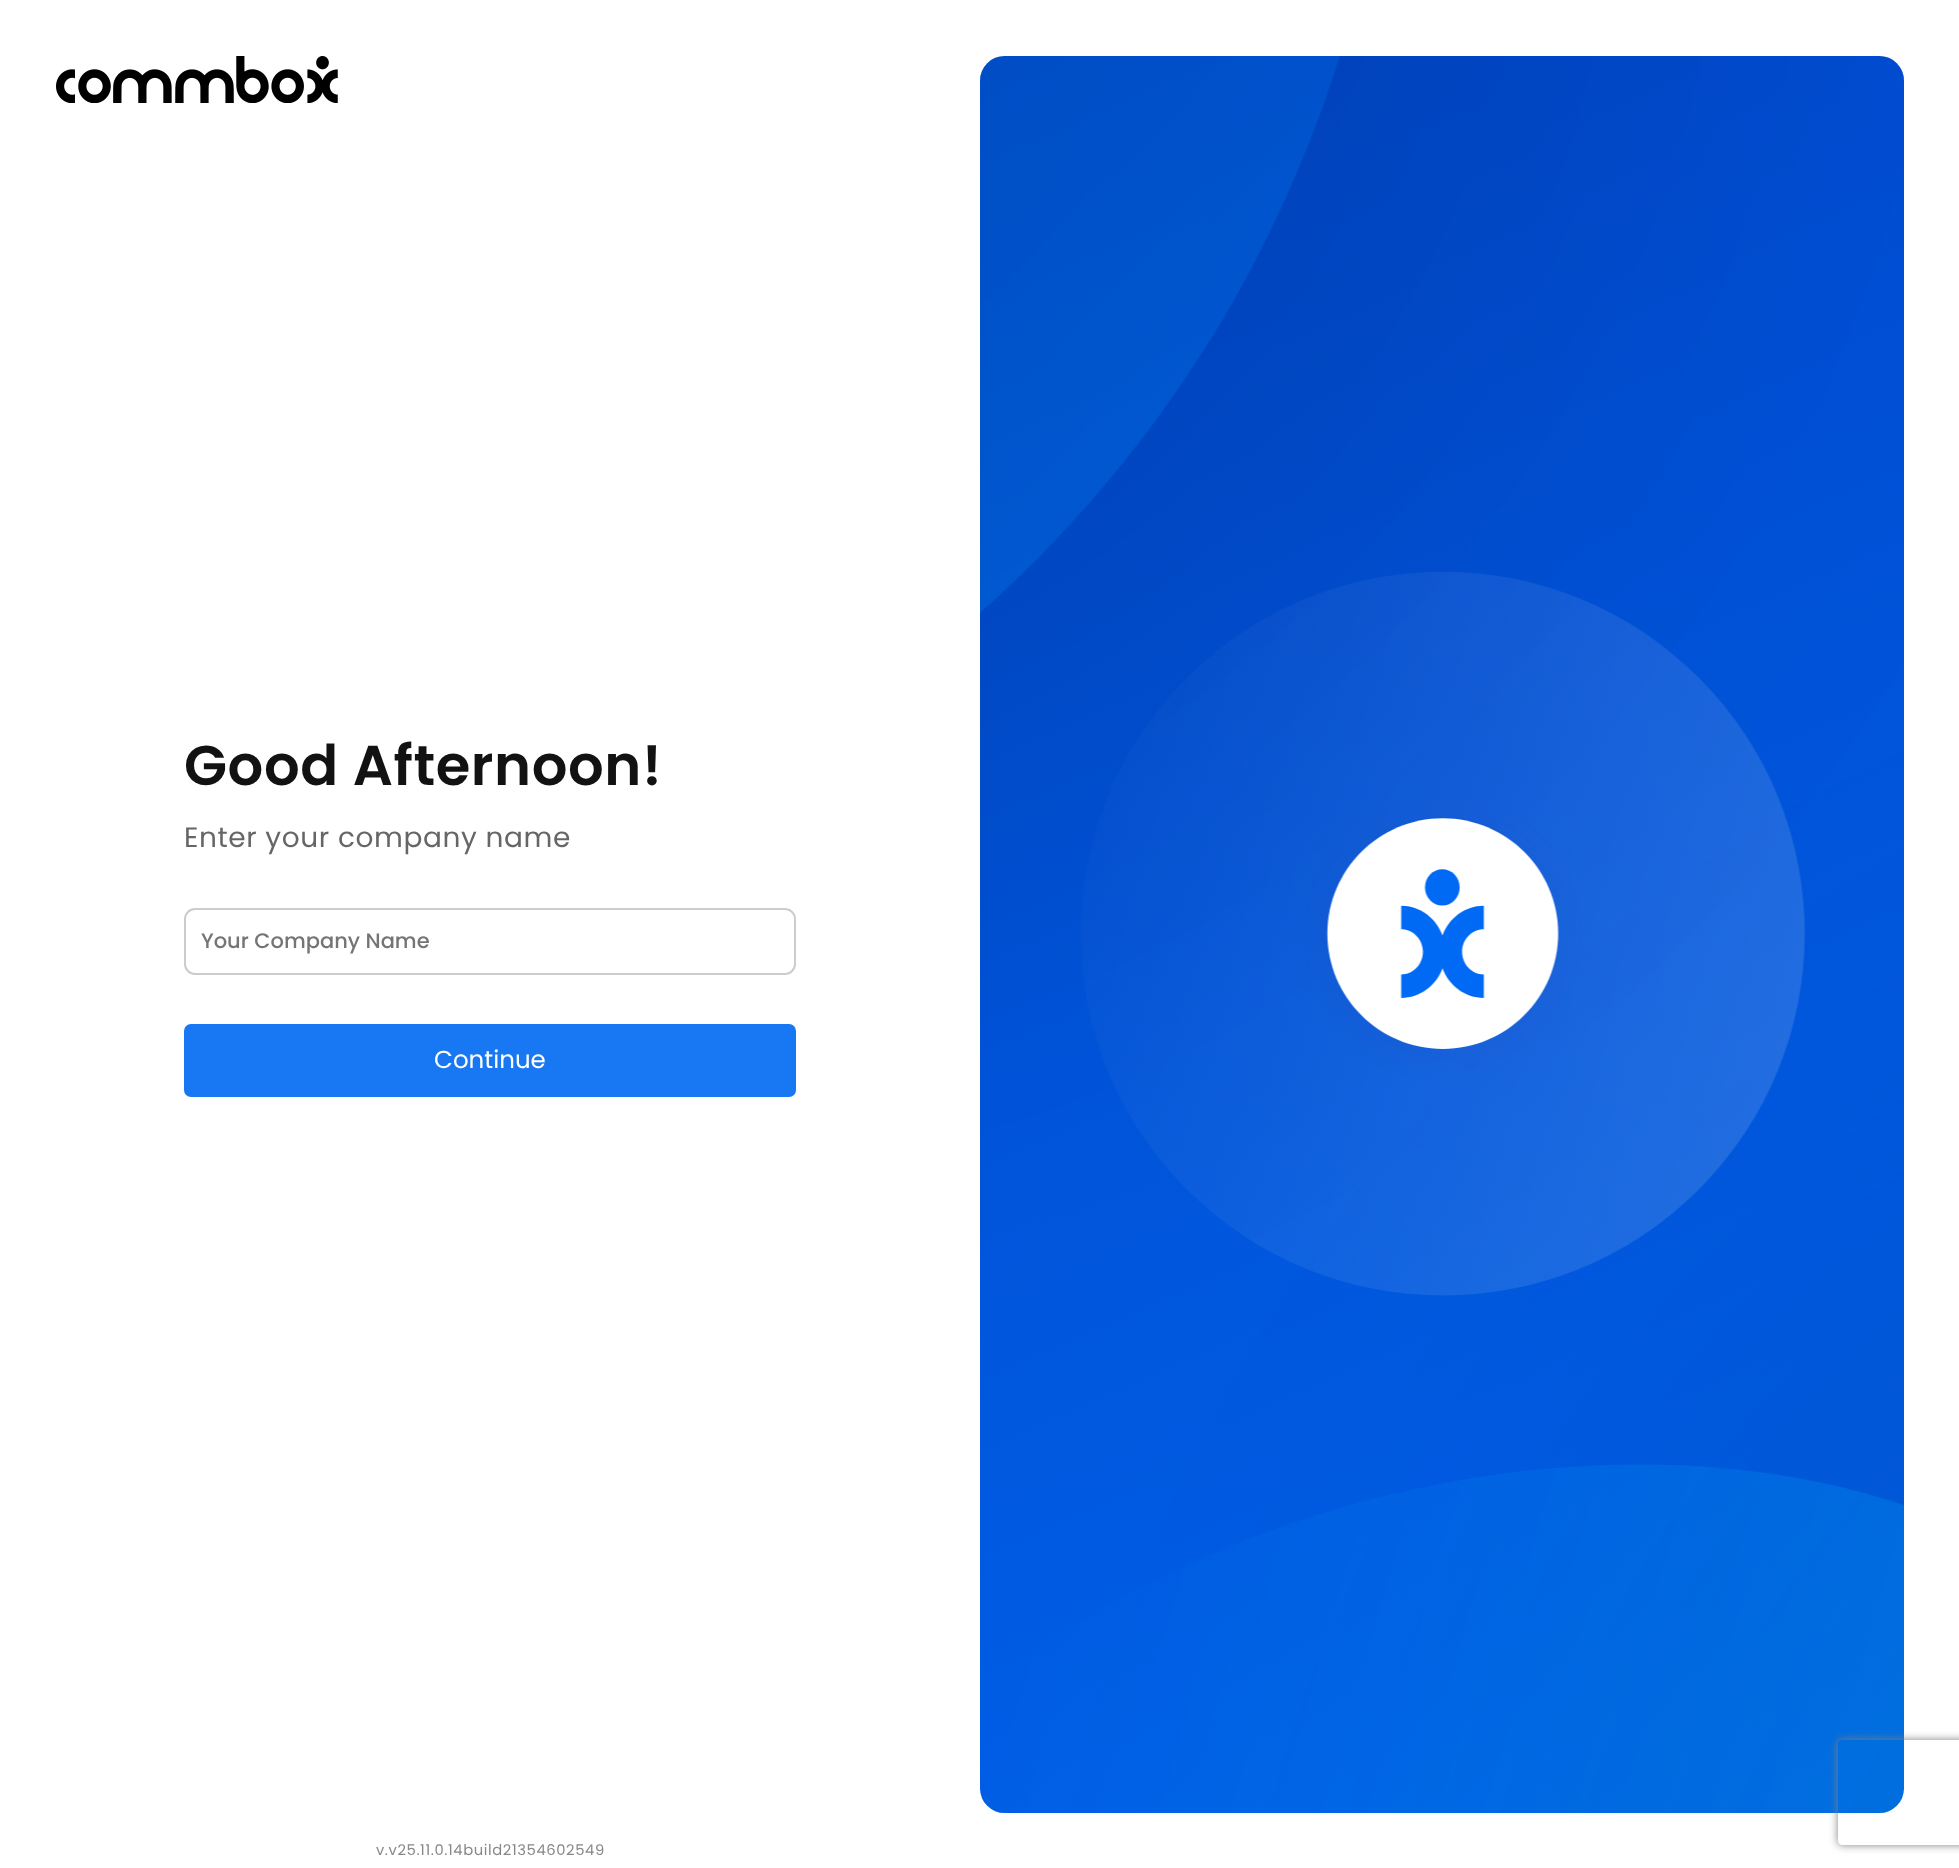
<svg xmlns="http://www.w3.org/2000/svg" width="1959" height="1868">
<style>
.a{font:600 56px Poppins;letter-spacing:0.6px;fill:#121212}
.b{font:28px Poppins;letter-spacing:0.6px;fill:#666}
.c{font:500 21px Poppins;fill:#757575}
.d{font:24.5px Poppins;fill:#fff}
.e{font:14.75px Poppins;letter-spacing:0.6px;fill:#888}
</style>
<defs>
<clipPath id="clip1"><path d="M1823 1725h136v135h-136zm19 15h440c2 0 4 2 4 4v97c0 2-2 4-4 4h-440c-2 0-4-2-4-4v-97c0-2 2-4 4-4z" clip-rule="evenodd"/></clipPath>
</defs>
<rect width="100%" height="100%" fill="#fff"/>
<image href="1.png" x="56" y="56" width="282" height="47"/>
<rect fill="none" stroke="#cbcccc" stroke-width="2" x="185" y="909" width="610" height="65" rx="10"/>
<rect fill="#1877f2" x="184" y="1024" width="612" height="73" rx="7"/>
<image href="2.png" x="979" y="56" width="926" height="1757"/>
<g clip-path="url(#clip1)">
<rect fill="#808080" filter="blur(4.5px)" x="1838" y="1740" width="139" height="105" rx="4"/>
</g>
<text class="a" x="184" y="785">Good Afternoon!</text>
<text class="b" x="184" y="847">Enter your company name</text>
<text class="c" x="201" y="948">Your Company Name</text>
<text class="d" x="434" y="1068">Continue</text>
<text class="e" x="376" y="1855">v.v25.11.0.14build21354602549</text>
</svg>
